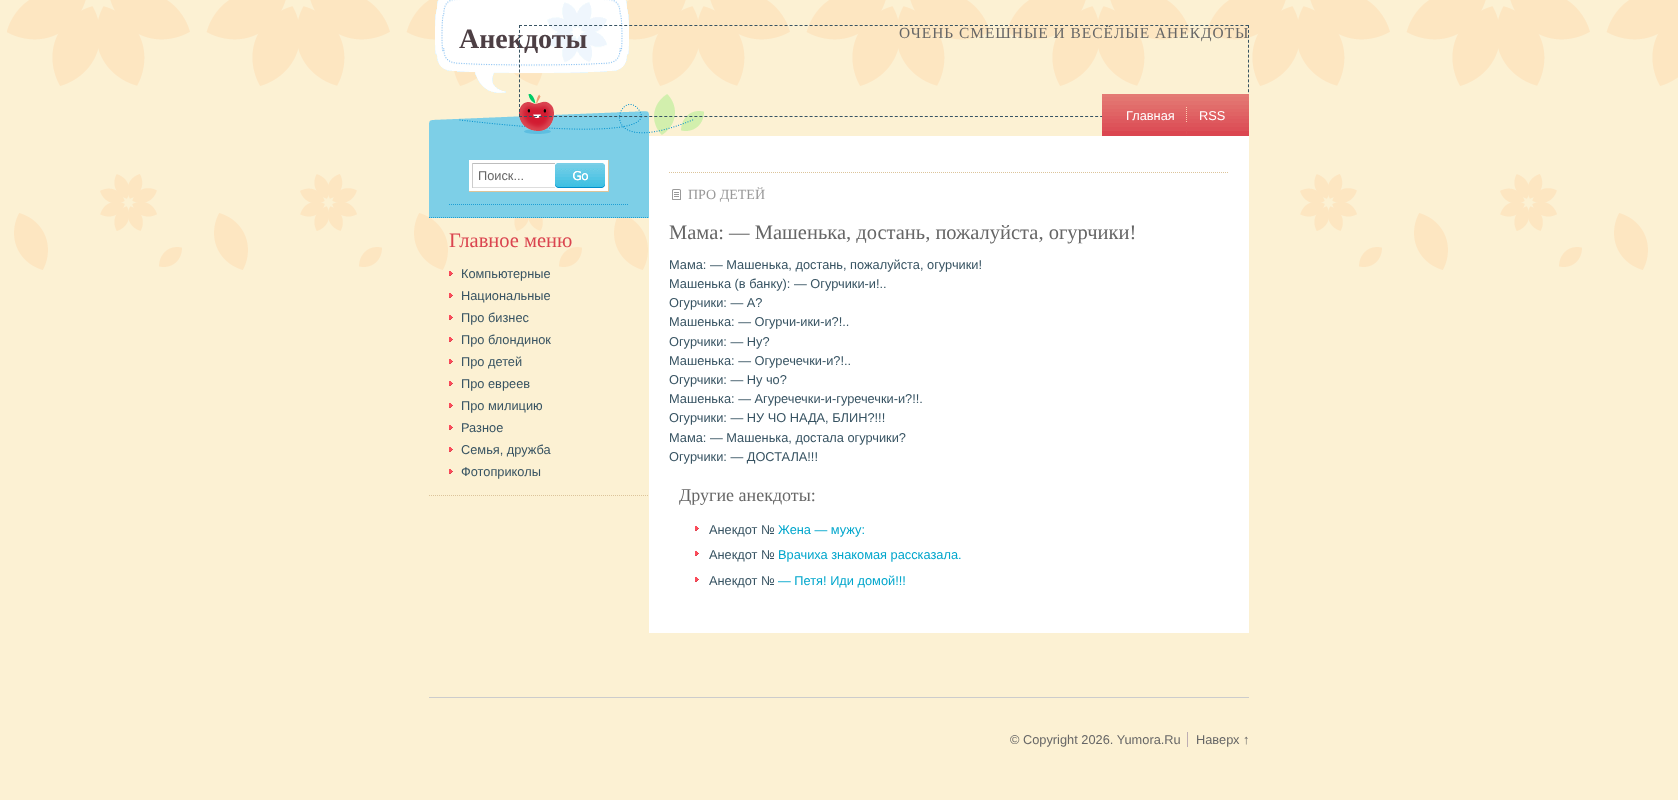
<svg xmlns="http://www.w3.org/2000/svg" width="1678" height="800">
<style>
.a{font:bold 28px Liberation Serif;fill:#4d3f44}
.b{font:15.4px Liberation Serif;letter-spacing:1px;fill:#666}
.c{font:12.8px Liberation Sans;fill:#fff}
.d{font:12.8px Liberation Sans;fill:#666}
.e{font:20.5px Liberation Serif;fill:#da444f}
.f{font:12.8px Liberation Sans;fill:#375362}
.g{font:14px Liberation Serif;fill:#999}
.h{font:20.5px Liberation Serif;fill:#666}
.i{font:18px Liberation Serif;fill:#666}
.j{font:12.8px Liberation Sans;fill:#00a6cc}
</style>
<rect width="100%" height="100%" fill="#fcf1d3"/>
<image href="1.png" x="7" y="0" width="1671" height="270"/>
<image href="2.png" x="435" y="0" width="194" height="93"/>
<image href="3.png" x="429" y="94" width="275" height="42"/>
<path fill="#db4650" d="M1102 131h147v5H1102z"/>
<path fill="#7dcfe7" d="M429 136h220v82H429z"/>
<path fill="none" stroke="#1f9fd4" stroke-dasharray="1 1" d="M429 217.5h220"/>
<path fill="none" stroke="#1f9fd4" stroke-dasharray="1 1" d="M449 204.5h180"/>
<path fill="#fff" d="M469 160h139v31H469z"/>
<path fill="#dcc49a" d="M608 160h1v32H608z"/>
<path fill="#dcc49a" d="M469 191h140v1H469z"/>
<path fill="#bdbdbd" d="M472 163h83v1H472z"/>
<path fill="#ddd" d="M472 187h83v1H472z"/>
<path fill="#ccc" d="M472 163h1v25H472z"/>
<image href="6.png" x="555" y="163" width="50" height="25"/>
<path fill="none" stroke="#dcc49a" stroke-dasharray="1 1" d="M429 495.5h220"/>
<image href="7.png" x="449" y="271" width="4" height="5"/>
<image href="7.png" x="449" y="293" width="4" height="5"/>
<image href="7.png" x="449" y="315" width="4" height="5"/>
<image href="7.png" x="449" y="337" width="4" height="5"/>
<image href="7.png" x="449" y="359" width="4" height="5"/>
<image href="7.png" x="449" y="381" width="4" height="5"/>
<image href="7.png" x="449" y="403" width="4" height="5"/>
<image href="7.png" x="449" y="425" width="4" height="5"/>
<image href="7.png" x="449" y="447" width="4" height="5"/>
<image href="7.png" x="449" y="469" width="4" height="5"/>
<path fill="#fff" d="M649 136h600v497H649z"/>
<path fill="none" stroke="#dcc49a" stroke-dasharray="1 1" d="M669 172.5h560"/>
<image href="8.png" x="672" y="189" width="9" height="11"/>
<image href="9.png" x="695" y="526" width="4" height="5"/>
<image href="9.png" x="695" y="551" width="4" height="5"/>
<image href="9.png" x="695" y="577" width="4" height="5"/>
<path fill="#ccc" d="M429 697h820v1H429z"/>
<path fill="#bdaeb4" d="M1187 732h1v15H1187z"/>
<text class="a" x="459" y="48">Анекдоты</text>
<text class="b" x="899" y="38">ОЧЕНЬ СМЕШНЫЕ И ВЕСЁЛЫЕ АНЕКДОТЫ</text>
<path fill="none" stroke="#375362" stroke-dasharray="3 2.01" d="M519 25.5h730"/>
<path fill="none" stroke="#375362" stroke-dasharray="3 1.94" d="M1248.5 25v92"/>
<path fill="none" stroke="#375362" stroke-dasharray="3 2.01" d="M519 116.5h730"/>
<path fill="none" stroke="#375362" stroke-dasharray="3 1.94" d="M519.5 25v92"/>
<image href="4.png" x="1102" y="94" width="147" height="37"/>
<image href="5.png" x="1186" y="107" width="1" height="27"/>
<text class="c" x="1126" y="120">Главная</text>
<text class="c" x="1199" y="120">RSS</text>
<text class="d" x="478" y="180">Поиск...</text>
<text class="e" x="449" y="247">Главное меню</text>
<text class="f" x="461" y="278">Компьютерные</text>
<text class="f" x="461" y="300">Национальные</text>
<text class="f" x="461" y="322">Про бизнес</text>
<text class="f" x="461" y="344">Про блондинок</text>
<text class="f" x="461" y="366">Про детей</text>
<text class="f" x="461" y="388">Про евреев</text>
<text class="f" x="461" y="410">Про милицию</text>
<text class="f" x="461" y="432">Разное</text>
<text class="f" x="461" y="454">Семья, дружба</text>
<text class="f" x="461" y="476">Фотоприколы</text>
<text class="g" x="688" y="199">ПРО ДЕТЕЙ</text>
<text class="h" x="669" y="239">Мама: — Машенька, достань, пожалуйста, огурчики!</text>
<text class="f" x="669" y="269">Мама: — Машенька, достань, пожалуйста, огурчики!</text>
<text class="f" x="669" y="288">Машенька (в банку): — Огурчики-и!..</text>
<text class="f" x="669" y="307">Огурчики: — А?</text>
<text class="f" x="669" y="326">Машенька: — Огурчи-ики-и?!..</text>
<text class="f" x="669" y="346">Огурчики: — Ну?</text>
<text class="f" x="669" y="365">Машенька: — Огуречечки-и?!..</text>
<text class="f" x="669" y="384">Огурчики: — Ну чо?</text>
<text class="f" x="669" y="403">Машенька: — Агуречечки-и-гуречечки-и?!!.</text>
<text class="f" x="669" y="422">Огурчики: — НУ ЧО НАДА, БЛИН?!!!</text>
<text class="f" x="669" y="442">Мама: — Машенька, достала огурчики?</text>
<text class="f" x="669" y="461">Огурчики: — ДОСТАЛА!!!</text>
<text class="i" x="679" y="501">Другие анекдоты:</text>
<text class="f" x="709" y="534">Анекдот №</text>
<text class="j" x="778" y="534">Жена — мужу:</text>
<text class="f" x="709" y="559">Анекдот №</text>
<text class="j" x="778" y="559">Врачиха знакомая рассказала.</text>
<text class="f" x="709" y="585">Анекдот №</text>
<text class="j" x="778" y="585">— Петя! Иди домой!!!</text>
<text class="d" x="1010" y="744">© Copyright 2026. Yumora.Ru</text>
<text class="d" x="1196" y="744">Наверх ↑</text>
</svg>
